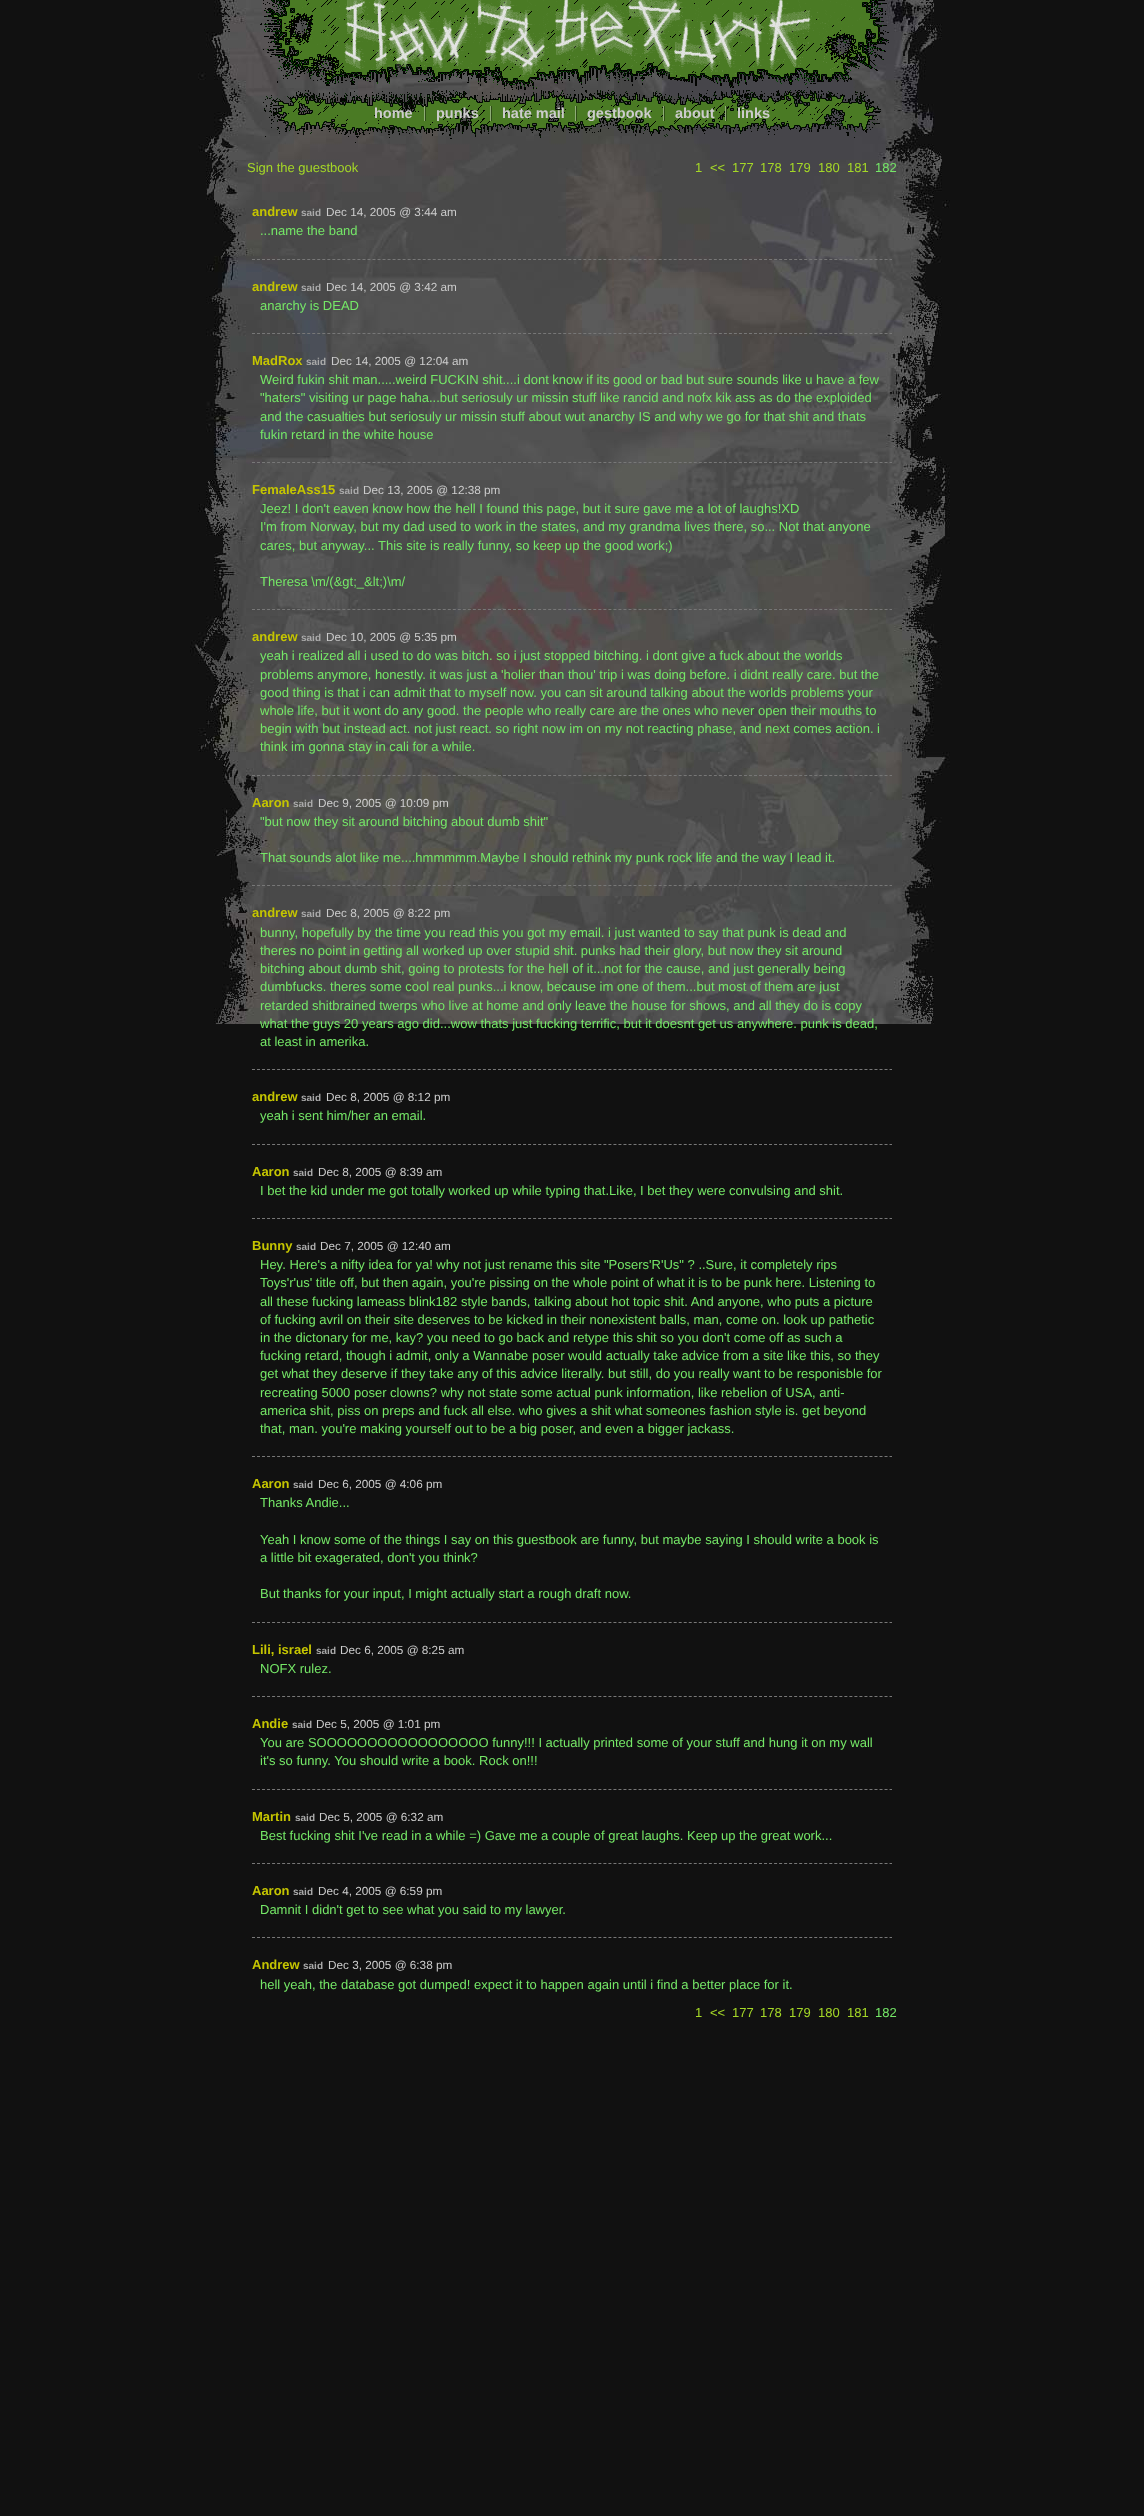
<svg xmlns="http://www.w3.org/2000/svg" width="1144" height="2516">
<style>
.a{font:bold 14.5px Liberation Sans;fill:#ccc}
.b{font:13px Liberation Sans;fill:#a4d727}
.c{font:13px Liberation Sans;fill:#75e767}
.d{font:bold 13px Liberation Sans;fill:#c5c500}
.e{font:bold 10px Liberation Sans;fill:#aaa}
.f{font:11.75px Liberation Sans;fill:#ccc}
</style>
<rect width="100%" height="100%" fill="#111"/>
<image href="1.png" x="190" y="0" width="760" height="1024"/>
<image href="2.png" x="260" y="0" width="629" height="90"/>
<image href="3.png" x="263" y="90" width="618" height="53"/>
<image href="4.png" x="424" y="106" width="2" height="15"/>
<image href="4.png" x="490" y="106" width="2" height="15"/>
<image href="4.png" x="575" y="106" width="2" height="15"/>
<image href="4.png" x="663" y="106" width="2" height="15"/>
<image href="4.png" x="725" y="106" width="2" height="15"/>
<path fill="none" stroke="#777" stroke-dasharray="3 2.02" d="M252 259.5h640"/>
<path fill="none" stroke="#777" stroke-dasharray="3 2.02" d="M252 333.5h640"/>
<path fill="none" stroke="#777" stroke-dasharray="3 2.02" d="M252 462.5h640"/>
<path fill="none" stroke="#777" stroke-dasharray="3 2.02" d="M252 609.5h640"/>
<path fill="none" stroke="#777" stroke-dasharray="3 2.02" d="M252 775.5h640"/>
<path fill="none" stroke="#777" stroke-dasharray="3 2.02" d="M252 885.5h640"/>
<path fill="none" stroke="#777" stroke-dasharray="3 2.02" d="M252 1069.5h640"/>
<path fill="none" stroke="#777" stroke-dasharray="3 2.02" d="M252 1144.5h640"/>
<path fill="none" stroke="#777" stroke-dasharray="3 2.02" d="M252 1218.5h640"/>
<path fill="none" stroke="#777" stroke-dasharray="3 2.02" d="M252 1456.5h640"/>
<path fill="none" stroke="#777" stroke-dasharray="3 2.02" d="M252 1622.5h640"/>
<path fill="none" stroke="#777" stroke-dasharray="3 2.02" d="M252 1696.5h640"/>
<path fill="none" stroke="#777" stroke-dasharray="3 2.02" d="M252 1789.5h640"/>
<path fill="none" stroke="#777" stroke-dasharray="3 2.02" d="M252 1863.5h640"/>
<path fill="none" stroke="#777" stroke-dasharray="3 2.02" d="M252 1937.5h640"/>
<text class="a" x="374" y="118">home</text>
<text class="a" x="436" y="118">punks</text>
<text class="a" x="502" y="118">hate mail</text>
<text class="a" x="587" y="118">gestbook</text>
<text class="a" x="675" y="118">about</text>
<text class="a" x="737" y="118">links</text>
<text class="b" x="247" y="172">Sign the guestbook</text>
<text class="b" x="695" y="172">1</text>
<text class="b" x="710" y="172">&lt;&lt;</text>
<text class="b" x="732" y="172">177</text>
<text class="b" x="760" y="172">178</text>
<text class="b" x="789" y="172">179</text>
<text class="b" x="818" y="172">180</text>
<text class="b" x="847" y="172">181</text>
<text class="c" x="875" y="172">182</text>
<text class="d" x="252" y="216">andrew</text>
<text class="e" x="301" y="216">said</text>
<text class="f" x="326" y="216">Dec 14, 2005 @ 3:44 am</text>
<text class="c" x="260" y="235">...name the band</text>
<text class="d" x="252" y="291">andrew</text>
<text class="e" x="301" y="291">said</text>
<text class="f" x="326" y="291">Dec 14, 2005 @ 3:42 am</text>
<text class="c" x="260" y="310">anarchy is DEAD</text>
<text class="d" x="252" y="365">MadRox</text>
<text class="e" x="306" y="365">said</text>
<text class="f" x="331" y="365">Dec 14, 2005 @ 12:04 am</text>
<text class="c" x="260" y="384">Weird fukin shit man.....weird FUCKIN shit....i dont know if its good or bad but sure sounds like u have a few</text>
<text class="c" x="260" y="402">"haters" visiting ur page haha...but seriosuly ur missin stuff like rancid and nofx kik ass as do the exploided</text>
<text class="c" x="260" y="421">and the casualties but seriosuly ur missin stuff about wut anarchy IS and why we go for that shit and thats</text>
<text class="c" x="260" y="439">fukin retard in the white house</text>
<text class="d" x="252" y="494">FemaleAss15</text>
<text class="e" x="339" y="494">said</text>
<text class="f" x="363" y="494">Dec 13, 2005 @ 12:38 pm</text>
<text class="c" x="260" y="513">Jeez! I don't eaven know how the hell I found this page, but it sure gave me a lot of laughs!XD</text>
<text class="c" x="260" y="531">I'm from Norway, but my dad used to work in the states, and my grandma lives there, so... Not that anyone</text>
<text class="c" x="260" y="550">cares, but anyway... This site is really funny, so keep up the good work;)</text>
<text class="c" x="260" y="586">Theresa \m/(&amp;gt;_&amp;lt;)\m/</text>
<text class="d" x="252" y="641">andrew</text>
<text class="e" x="301" y="641">said</text>
<text class="f" x="326" y="641">Dec 10, 2005 @ 5:35 pm</text>
<text class="c" x="260" y="660">yeah i realized all i used to do was bitch. so i just stopped bitching. i dont give a fuck about the worlds</text>
<text class="c" x="260" y="679">problems anymore, honestly. it was just a 'holier than thou' trip i was doing before. i didnt really care. but the</text>
<text class="c" x="260" y="697">good thing is that i can admit that to myself now. you can sit around talking about the worlds problems your</text>
<text class="c" x="260" y="715">whole life, but it wont do any good. the people who really care are the ones who never open their mouths to</text>
<text class="c" x="260" y="733">begin with but instead act. not just react. so right now im on my not reacting phase, and next comes action. i</text>
<text class="c" x="260" y="751">think im gonna stay in cali for a while.</text>
<text class="d" x="252" y="807">Aaron</text>
<text class="e" x="293" y="807">said</text>
<text class="f" x="318" y="807">Dec 9, 2005 @ 10:09 pm</text>
<text class="c" x="260" y="826">"but now they sit around bitching about dumb shit"</text>
<text class="c" x="260" y="862">That sounds alot like me....hmmmmm.Maybe I should rethink my punk rock life and the way I lead it.</text>
<text class="d" x="252" y="917">andrew</text>
<text class="e" x="301" y="917">said</text>
<text class="f" x="326" y="917">Dec 8, 2005 @ 8:22 pm</text>
<text class="c" x="260" y="937">bunny, hopefully by the time you read this you got my email. i just wanted to say that punk is dead and</text>
<text class="c" x="260" y="955">theres no point in getting all worked up over stupid shit. punks had their glory, but now they sit around</text>
<text class="c" x="260" y="973">bitching about dumb shit, going to protests for the hell of it...not for the cause, and just generally being</text>
<text class="c" x="260" y="991">dumbfucks. theres some cool real punks...i know, because im one of them...but most of them are just</text>
<text class="c" x="260" y="1010">retarded shitbrained twerps who live at home and only leave the house for shows, and all they do is copy</text>
<text class="c" x="260" y="1028">what the guys 20 years ago did...wow thats just fucking terrific, but it doesnt get us anywhere. punk is dead,</text>
<text class="c" x="260" y="1046">at least in amerika.</text>
<text class="d" x="252" y="1101">andrew</text>
<text class="e" x="301" y="1101">said</text>
<text class="f" x="326" y="1101">Dec 8, 2005 @ 8:12 pm</text>
<text class="c" x="260" y="1120">yeah i sent him/her an email.</text>
<text class="d" x="252" y="1176">Aaron</text>
<text class="e" x="293" y="1176">said</text>
<text class="f" x="318" y="1176">Dec 8, 2005 @ 8:39 am</text>
<text class="c" x="260" y="1195">I bet the kid under me got totally worked up while typing that.Like, I bet they were convulsing and shit.</text>
<text class="d" x="252" y="1250">Bunny</text>
<text class="e" x="296" y="1250">said</text>
<text class="f" x="320" y="1250">Dec 7, 2005 @ 12:40 am</text>
<text class="c" x="260" y="1269">Hey. Here's a nifty idea for ya! why not just rename this site "Posers'R'Us" ? ..Sure, it completely rips</text>
<text class="c" x="260" y="1287">Toys'r'us' title off, but then again, you're pissing on the whole point of what it is to be punk here. Listening to</text>
<text class="c" x="260" y="1306">all these fucking lameass blink182 style bands, talking about hot topic shit. And anyone, who puts a picture</text>
<text class="c" x="260" y="1324">of fucking avril on their site deserves to be kicked in their nonexistent balls, man, come on. look up pathetic</text>
<text class="c" x="260" y="1342">in the dictonary for me, kay? you need to go back and retype this shit so you don't come off as such a</text>
<text class="c" x="260" y="1360">fucking retard, though i admit, only a Wannabe poser would actually take advice from a site like this, so they</text>
<text class="c" x="260" y="1378">get what they deserve if they take any of this advice literally. but still, do you really want to be responisble for</text>
<text class="c" x="260" y="1397">recreating 5000 poser clowns? why not state some actual punk information, like rebelion of USA, anti-</text>
<text class="c" x="260" y="1415">america shit, piss on preps and fuck all else. who gives a shit what someones fashion style is. get beyond</text>
<text class="c" x="260" y="1433">that, man. you're making yourself out to be a big poser, and even a bigger jackass.</text>
<text class="d" x="252" y="1488">Aaron</text>
<text class="e" x="293" y="1488">said</text>
<text class="f" x="318" y="1488">Dec 6, 2005 @ 4:06 pm</text>
<text class="c" x="260" y="1507">Thanks Andie...</text>
<text class="c" x="260" y="1544">Yeah I know some of the things I say on this guestbook are funny, but maybe saying I should write a book is</text>
<text class="c" x="260" y="1562">a little bit exagerated, don't you think?</text>
<text class="c" x="260" y="1598">But thanks for your input, I might actually start a rough draft now.</text>
<text class="d" x="252" y="1654">Lili, israel</text>
<text class="e" x="316" y="1654">said</text>
<text class="f" x="340" y="1654">Dec 6, 2005 @ 8:25 am</text>
<text class="c" x="260" y="1673">NOFX rulez.</text>
<text class="d" x="252" y="1728">Andie</text>
<text class="e" x="292" y="1728">said</text>
<text class="f" x="316" y="1728">Dec 5, 2005 @ 1:01 pm</text>
<text class="c" x="260" y="1747">You are SOOOOOOOOOOOOOOOOO funny!!! I actually printed some of your stuff and hung it on my wall</text>
<text class="c" x="260" y="1765">it's so funny. You should write a book. Rock on!!!</text>
<text class="d" x="252" y="1821">Martin</text>
<text class="e" x="295" y="1821">said</text>
<text class="f" x="319" y="1821">Dec 5, 2005 @ 6:32 am</text>
<text class="c" x="260" y="1840">Best fucking shit I've read in a while =) Gave me a couple of great laughs. Keep up the great work...</text>
<text class="d" x="252" y="1895">Aaron</text>
<text class="e" x="293" y="1895">said</text>
<text class="f" x="318" y="1895">Dec 4, 2005 @ 6:59 pm</text>
<text class="c" x="260" y="1914">Damnit I didn't get to see what you said to my lawyer.</text>
<text class="d" x="252" y="1969">Andrew</text>
<text class="e" x="303" y="1969">said</text>
<text class="f" x="328" y="1969">Dec 3, 2005 @ 6:38 pm</text>
<text class="c" x="260" y="1989">hell yeah, the database got dumped! expect it to happen again until i find a better place for it.</text>
<text class="b" x="695" y="2017">1</text>
<text class="b" x="710" y="2017">&lt;&lt;</text>
<text class="b" x="732" y="2017">177</text>
<text class="b" x="760" y="2017">178</text>
<text class="b" x="789" y="2017">179</text>
<text class="b" x="818" y="2017">180</text>
<text class="b" x="847" y="2017">181</text>
<text class="c" x="875" y="2017">182</text>
</svg>
